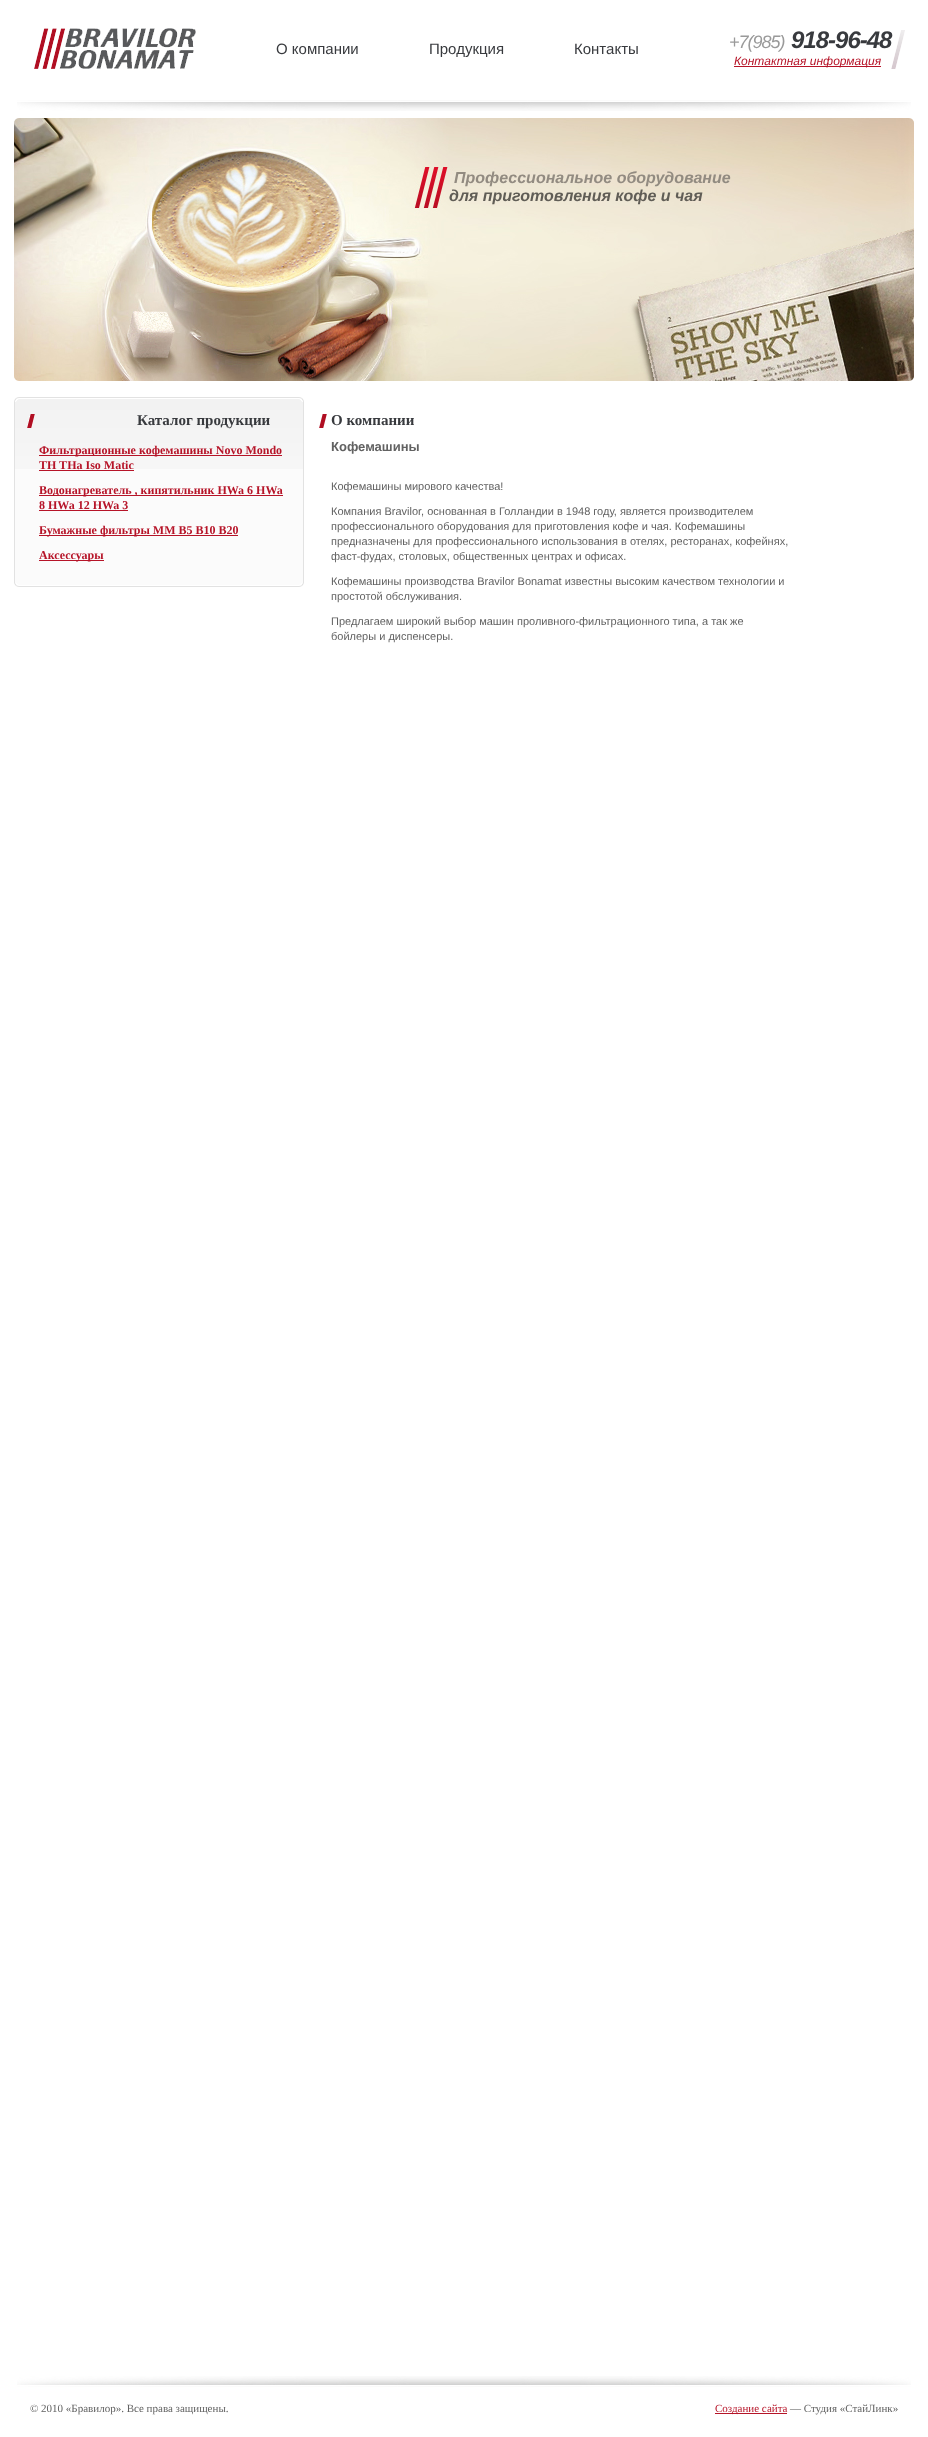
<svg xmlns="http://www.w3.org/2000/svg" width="928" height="2437">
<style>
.a{font:15px Liberation Sans;fill:#383a3e}
.b{font:italic 18px Liberation Sans;letter-spacing:-1px;fill:#9a9a9a}
.c{font:italic bold 24px Liberation Sans;letter-spacing:-1px;fill:#383a3e}
.d{font:italic 12px Liberation Sans;fill:#b61428}
.e{font:italic bold 16px Liberation Sans;fill:#928b81}
.f{font:italic bold 16px Liberation Sans;fill:#605d56}
.g{font:bold 15px Liberation Serif;fill:#383a3e}
.h{font:bold 12px Liberation Serif;fill:#b61428}
.i{font:bold 13px Liberation Sans;fill:#626262}
.j{font:11px Liberation Sans;fill:#626262}
.k{font:11px Liberation Serif;fill:#626262}
.l{font:11px Liberation Serif;fill:#b61428}
</style>
<rect width="100%" height="100%" fill="#fff"/>
<image href="1.png" x="17" y="100" width="894" height="11"/>
<image href="2.png" x="34" y="28" width="162" height="41"/>
<image href="3.png" x="891" y="30" width="14" height="39"/>
<path fill="#b61428" d="M734 66h147v1H734z"/>
<image href="4.png" x="14" y="118" width="900" height="263"/>
<image href="5.png" x="14" y="397" width="290" height="5"/>
<path fill="#fbfbfb" d="M15 469h288v114H15z"/>
<image href="6.png" x="15" y="402" width="288" height="67"/>
<path fill="#e2e2e2" d="M303 402h1v181H303z"/>
<path fill="#e2e2e2" d="M14 402h1v181H14z"/>
<image href="7.png" x="27" y="414" width="8" height="14"/>
<path fill="#b61428" d="M39 455h243v1H39z"/>
<path fill="#b61428" d="M39 470h95v1H39z"/>
<path fill="#b61428" d="M39 495h244v1H39z"/>
<path fill="#b61428" d="M39 510h89v1H39z"/>
<path fill="#b61428" d="M39 535h199v1H39z"/>
<path fill="#b61428" d="M39 560h65v1H39z"/>
<image href="8.png" x="14" y="583" width="290" height="4"/>
<image href="9.png" x="319" y="414" width="8" height="14"/>
<image href="10.png" x="17" y="2376" width="894" height="11"/>
<path fill="#b61428" d="M715 2413h72v1H715z"/>
<text class="a" x="276" y="54">О компании</text>
<text class="a" x="429" y="54">Продукция</text>
<text class="a" x="574" y="54">Контакты</text>
<text class="b" x="729" y="48">+7(985)</text>
<text class="c" x="791" y="48">918-96-48</text>
<text class="d" x="734" y="65">Контактная информация</text>
<text class="e" x="454" y="183">Профессиональное оборудование</text>
<text class="f" x="449" y="201">для приготовления кофе и чая</text>
<text class="g" x="137" y="425">Каталог продукции</text>
<text class="h" x="39" y="454">Фильтрационные кофемашины Novo Mondo</text>
<text class="h" x="39" y="469">TH THa Iso Matic</text>
<text class="h" x="39" y="494">Водонагреватель , кипятильник HWa 6 HWa</text>
<text class="h" x="39" y="509">8 HWa 12 HWa 3</text>
<text class="h" x="39" y="534">Бумажные фильтры ММ В5 В10 В20</text>
<text class="h" x="39" y="559">Аксессуары</text>
<text class="g" x="331" y="425">О компании</text>
<text class="i" x="331" y="451">Кофемашины</text>
<text class="j" x="331" y="490">Кофемашины мирового качества!</text>
<text class="j" x="331" y="515">Компания Bravilor, основанная в Голландии в 1948 году, является производителем</text>
<text class="j" x="331" y="530">профессионального оборудования для приготовления кофе и чая. Кофемашины</text>
<text class="j" x="331" y="545">предназначены для профессионального использования в отелях, ресторанах, кофейнях,</text>
<text class="j" x="331" y="560">фаст-фудах, столовых, общественных центрах и офисах.</text>
<text class="j" x="331" y="585">Кофемашины производства Bravilor Bonamat известны высоким качеством технологии и</text>
<text class="j" x="331" y="600">простотой обслуживания.</text>
<text class="j" x="331" y="625">Предлагаем широкий выбор машин проливного-фильтрационного типа, а так же</text>
<text class="j" x="331" y="640">бойлеры и диспенсеры.</text>
<text class="k" x="30" y="2412">© 2010 «Бравилор». Все права защищены.</text>
<text class="l" x="715" y="2412">Создание сайта</text>
<text class="k" x="790" y="2412">— Студия «СтайЛинк»</text>
</svg>
